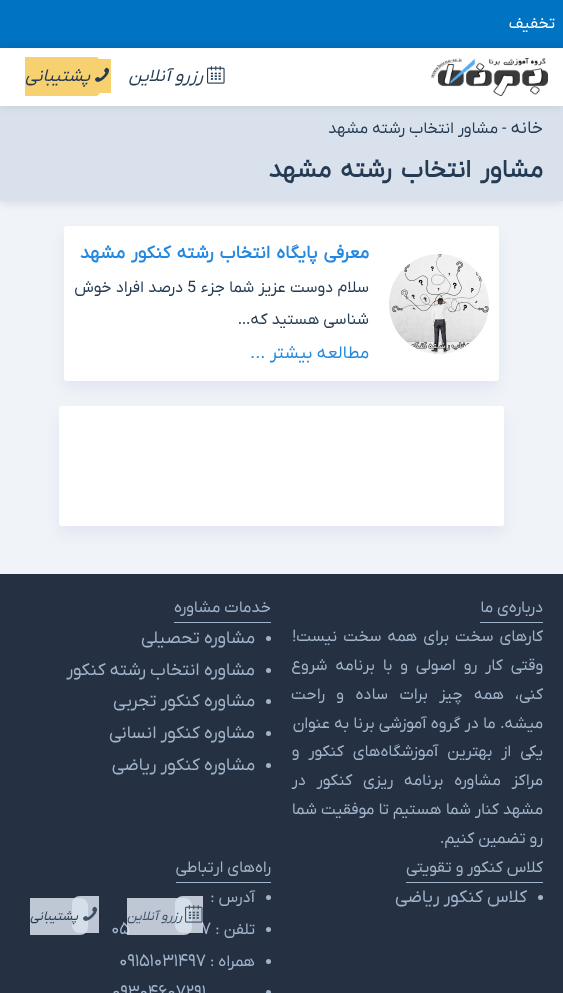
<svg xmlns="http://www.w3.org/2000/svg" width="563" height="993">
<style>
.a{font:16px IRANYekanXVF;direction:rtl;fill:#fff}
.b{font:italic 17.6px IRANYekanXVF;direction:rtl;fill:#243b53}
.c{font:17.6px IRANYekanXVF;direction:rtl;fill:#243b53}
.d{font:16px IRANYekanXVF;fill:#243b53}
.e{font:16px IRANYekanXVF;direction:rtl;fill:#243b53}
.f{font:bold 25px IRANYekanXVF;direction:rtl;fill:#243b53}
.g{font:bold 18px IRANYekanXVF;direction:rtl;fill:#2488e1}
.h{font:17.6px IRANYekanXVF;direction:rtl;fill:#2488e1}
.i{font:16px IRANYekanXVF;direction:rtl;fill:#a2b4cc}
.j{font:17.6px IRANYekanXVF;direction:rtl;fill:#a2b4cc}
.k{font:17.6px IRANYekanXVF;fill:#a2b4cc}
.l{font:italic 13px IRANYekanXVF;direction:rtl;fill:#3c5167}
.m{font:italic 13px IRANYekanXVF;direction:rtl;fill:#243b53}
</style>
<rect width="100%" height="100%" fill="#f0f4f8"/>
<path fill="#0073c2" d="M0 0h563v48H0z"/>
<path fill="#0000001a" filter="blur(4px)" d="M0 108h563v95H0z"/>
<path fill="#d9e2ec" d="M0 106h563v95H0z"/>
<path fill="#0000001a" filter="blur(5px)" d="M0 48h563v58H0z"/>
<path fill="#fff" d="M0 48h563v58H0z"/>
<image href="1.png" x="431" y="58" width="117" height="38"/>
<image href="2.png" x="207" y="66" width="18" height="18"/>
<path fill="#f7d070" d="M99 59h12v34H99z"/>
<path fill="#f7d070" d="M25 57h70c3 0 5 2 5 5v29c0 3-2 5-5 5h-70z"/>
<image href="3.png" x="95" y="67" width="15" height="15"/>
<rect fill="#616dbe1a" filter="blur(7.5px)" x="64" y="234" width="435" height="155" rx="3"/>
<rect fill="#fff" x="64" y="226" width="435" height="155" rx="3"/>
<image href="4.png" x="389" y="254" width="100" height="100"/>
<rect fill="#616dbe1a" filter="blur(7.5px)" x="59" y="414" width="445" height="120" rx="3"/>
<rect fill="#fff" x="59" y="406" width="445" height="120" rx="3"/>
<path fill="#253142" d="M0 574h563v419H0z"/>
<path fill="#a2b4cc" d="M480 622h63v1H480z"/>
<path fill="#a2b4cc" d="M174 622h97v1H174z"/>
<circle fill="#a2b4cc" cx="268.5" cy="638.5" r="2.5"/>
<circle fill="#a2b4cc" cx="268.5" cy="670.5" r="2.5"/>
<circle fill="#a2b4cc" cx="268.5" cy="701.5" r="2.5"/>
<circle fill="#a2b4cc" cx="268.5" cy="733.5" r="2.5"/>
<circle fill="#a2b4cc" cx="268.5" cy="765.5" r="2.5"/>
<path fill="#a2b4cc" d="M406 882h137v1H406z"/>
<circle fill="#a2b4cc" cx="540.5" cy="897.5" r="2.5"/>
<path fill="#a2b4cc" d="M176 882h95v1H176z"/>
<circle fill="#a2b4cc" cx="268.5" cy="897.5" r="2.5"/>
<circle fill="#a2b4cc" cx="268.5" cy="929.5" r="2.5"/>
<circle fill="#a2b4cc" cx="268.5" cy="961.5" r="2.5"/>
<circle fill="#a2b4cc" cx="268.5" cy="992.5" r="2.5"/>
<path fill="#d9e2ecd9" d="M80 896h19v37h-19c-4.5 0-8-3.5-8-8v-21c0-4.5 3.5-8 8-8z"/>
<path fill="#d9e2ecd9" d="M30 898h50c4.5 0 8 3.5 8 8v21c0 4.5-3.5 8-8 8h-50z"/>
<image href="6.png" x="83" y="906" width="15" height="15"/>
<text class="a" x="555" y="28">تخفیف</text>
<text class="b" x="203" y="81">رزرو آنلاین</text>
<text class="b" x="90" y="81">پشتیبانی</text>
<text class="c" x="543" y="133">خانه</text>
<text class="d" x="502" y="133">-</text>
<text class="e" x="498" y="133">مشاور انتخاب رشته مشهد</text>
<text class="f" x="543" y="177" word-spacing="3">مشاور انتخاب رشته مشهد</text>
<text class="g" x="369" y="258" word-spacing="1.5">معرفی پایگاه انتخاب رشته کنکور مشهد</text>
<text class="e" x="369" y="292" word-spacing="0.25">سلام دوست عزیز شما جزء</text>
<text class="d" x="187" y="292">5</text>
<text class="e" x="183" y="292" word-spacing="0.25">درصد افراد خوش</text>
<text class="e" x="369" y="324">شناسی هستید که…</text>
<text class="h" x="369" y="358">مطالعه بیشتر ...</text>
<text class="i" x="543" y="612">درباره‌ی ما</text>
<text class="i" x="543" y="641" word-spacing="2">کارهای سخت برای همه سخت نیست!</text>
<text class="i" x="543" y="670" word-spacing="4">وقتی کار رو اصولی و با برنامه شروع</text>
<text class="i" x="543" y="699" word-spacing="7.5">کنی، همه چیز برات ساده و راحت</text>
<text class="i" x="543" y="728" word-spacing="0.25">میشه. ما در گروه آموزشی برنا به عنوان</text>
<text class="i" x="543" y="756" word-spacing="5">یکی از بهترین آموزشگاه‌های کنکور و</text>
<text class="i" x="543" y="785" word-spacing="7">مراکز مشاوره برنامه ریزی کنکور در</text>
<text class="i" x="543" y="814" word-spacing="0.25">مشهد کنار شما هستیم تا موفقیت شما</text>
<text class="i" x="543" y="843">رو تضمین کنیم.</text>
<text class="i" x="271" y="612">خدمات مشاوره</text>
<text class="j" x="255" y="643">مشاوره تحصیلی</text>
<text class="j" x="255" y="675">مشاوره انتخاب رشته کنکور</text>
<text class="j" x="255" y="706">مشاوره کنکور تجربی</text>
<text class="j" x="255" y="738">مشاوره کنکور انسانی</text>
<text class="j" x="255" y="770">مشاوره کنکور ریاضی</text>
<text class="i" x="543" y="872">کلاس کنکور و تقویتی</text>
<text class="j" x="527" y="902">کلاس کنکور ریاضی</text>
<text class="i" x="271" y="872">راه‌های ارتباطی</text>
<text class="i" x="255" y="902">آدرس :</text>
<text class="i" x="255" y="934">تلفن :</text>
<text class="k" x="201" y="934">۷</text>
<text class="k" x="111" y="934">۰۵</text>
<text class="i" x="255" y="966">همراه :</text>
<text class="k" x="119" y="966">۰۹۱۵۱۰۳۱۴۹۷</text>
<text class="k" x="112" y="997">۰۹۳۰۴۶۰۷۲۹۱</text>
<path fill="#d9e2ecd9" d="M183 896h20v37h-20c-4.5 0-8-3.5-8-8v-21c0-4.5 3.5-8 8-8z"/>
<path fill="#d9e2ecd9" d="M127 898h57c4.5 0 8 3.5 8 8v21c0 4.5-3.5 8-8 8h-57z"/>
<image href="5.png" x="185" y="905" width="18" height="18"/>
<text class="l" x="182" y="920">رزرو آنلاین</text>
<text class="m" x="78" y="920">پشتیبانی</text>
</svg>
